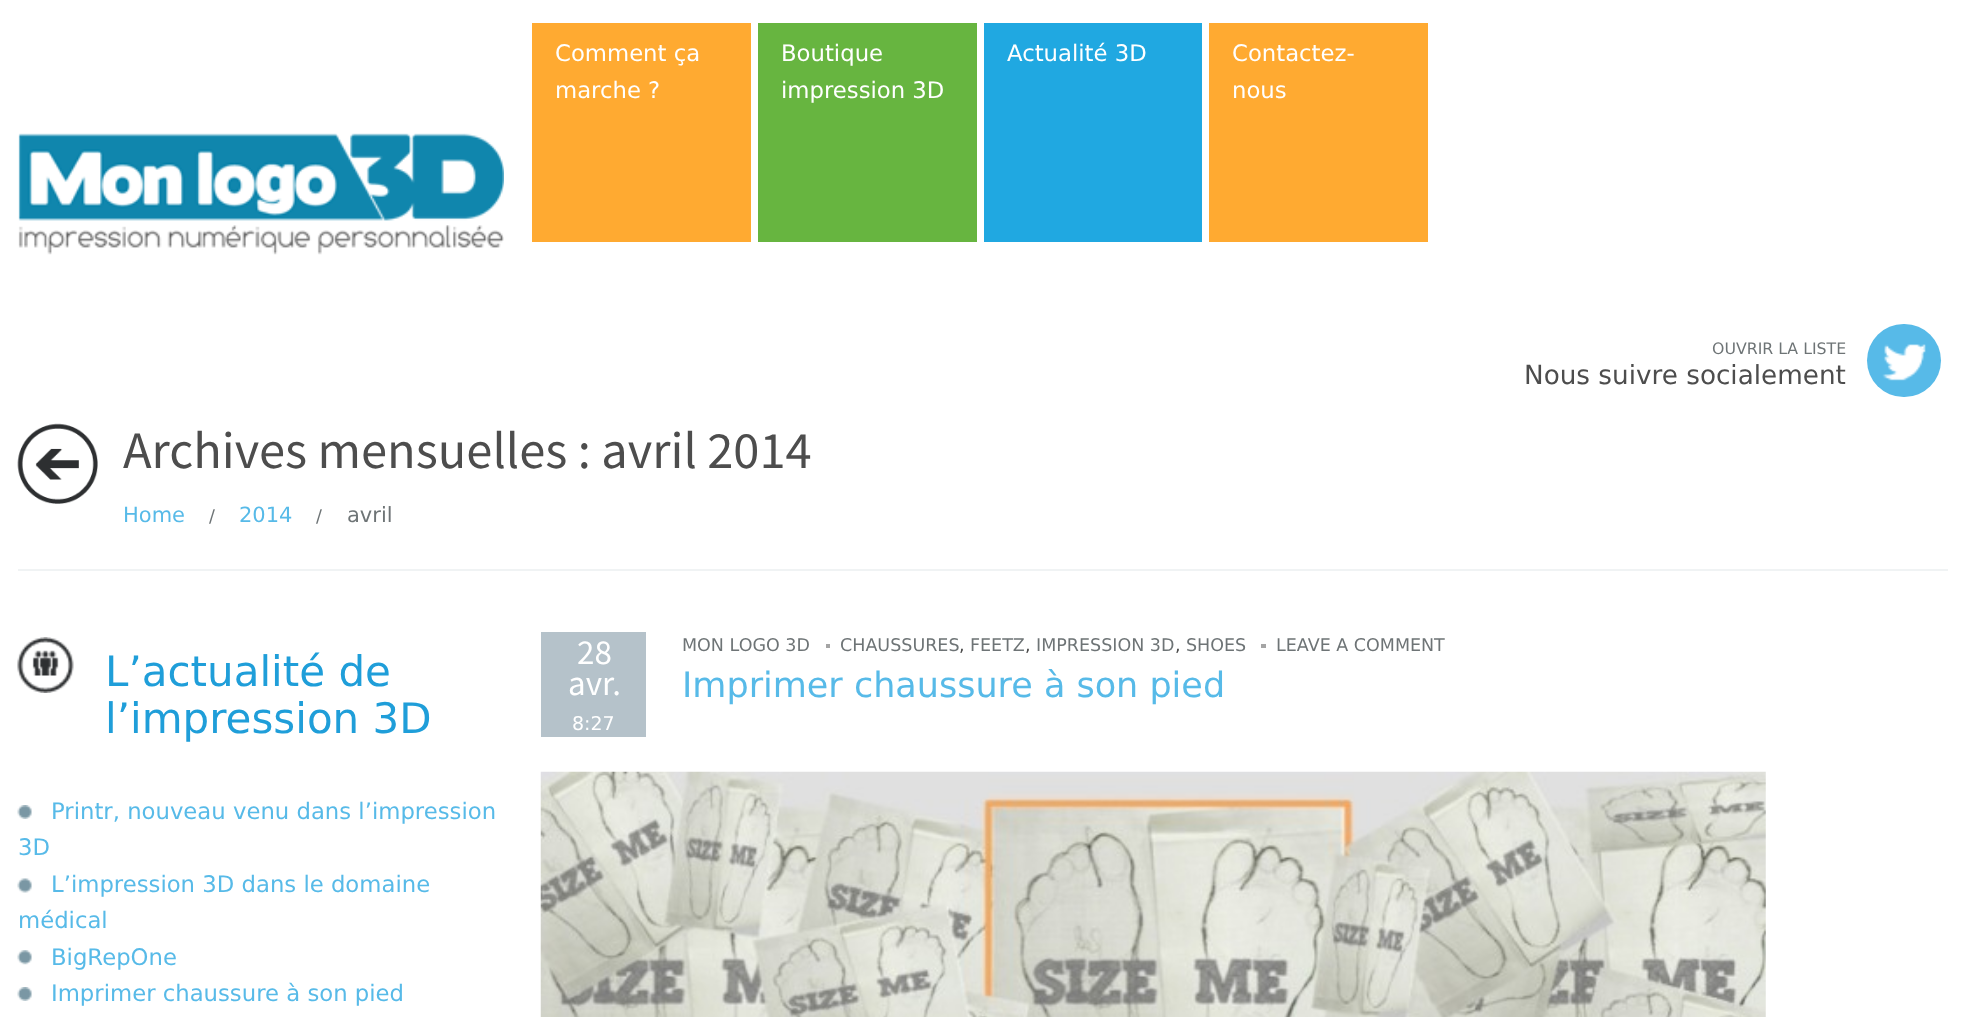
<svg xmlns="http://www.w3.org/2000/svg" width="1964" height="1017">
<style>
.a{font:22.75px DejaVu Sans;fill:#fff}
.b{font:15.75px DejaVu Sans;fill:#6e7476}
.c{font:26.25px DejaVu Sans;fill:#4d4d4d}
.d{font:52.5px Source Sans Pro;fill:#4d4d4d}
.e{font:21px DejaVu Sans;fill:#57bae8}
.f{font:17.5px DejaVu Sans;fill:#6e7476}
.g{font:21px DejaVu Sans;fill:#6e7476}
.h{font:42px DejaVu Sans;fill:#1f9ed9}
.i{font:22.75px DejaVu Sans;fill:#57bae8}
.j{font:35px Source Sans Pro;fill:#fff}
.k{font:19px DejaVu Sans;fill:#fff}
.l{font:17.5px DejaVu Sans;fill:#4d4d4d}
.m{font:35px DejaVu Sans;fill:#57bae8}
</style>
<rect width="100%" height="100%" fill="#fff"/>
<path fill="#ffaa31" d="M532 23h219v219H532z"/>
<path fill="#67b540" d="M758 23h219v219H758z"/>
<path fill="#20a8e1" d="M984 23h218v219H984z"/>
<path fill="#ffaa31" d="M1209 23h219v219H1209z"/>
<image href="1.png" x="18" y="133" width="486" height="122"/>
<rect fill="#57bae8" x="1867" y="324" width="74" height="73" rx="36.5"/>
<image href="2.png" x="1882" y="344" width="44" height="37"/>
<image href="3.png" x="17" y="423" width="81" height="81"/>
<path fill="#f0f3f4" d="M18 569h1930v2H18z"/>
<image href="4.png" x="17" y="637" width="57" height="56"/>
<image href="5.png" x="17" y="805" width="15" height="14"/>
<image href="6.png" x="17" y="878" width="15" height="15"/>
<image href="7.png" x="17" y="950" width="15" height="15"/>
<image href="5.png" x="17" y="987" width="15" height="14"/>
<path fill="#b5c2ca" d="M541 632h105v105H541z"/>
<path fill="#a5a5a5" d="M826 644h4v4H826z"/>
<path fill="#a5a5a5" d="M1261 644h5v4H1261z"/>
<image href="8.png" x="540" y="771" width="1226" height="246"/>
<text class="a" x="555" y="61">Comment ça</text>
<text class="a" x="555" y="98">marche ?</text>
<text class="a" x="781" y="61">Boutique</text>
<text class="a" x="781" y="98">impression 3D</text>
<text class="a" x="1007" y="61">Actualité 3D</text>
<text class="a" x="1232" y="61">Contactez-</text>
<text class="a" x="1232" y="98">nous</text>
<text class="b" x="1712" y="354">OUVRIR LA LISTE</text>
<text class="c" x="1524" y="384">Nous suivre socialement</text>
<text class="d" x="123" y="468">Archives mensuelles : avril 2014</text>
<text class="e" x="123" y="522">Home</text>
<text class="f" x="209" y="522">/</text>
<text class="e" x="239" y="522">2014</text>
<text class="f" x="316" y="522">/</text>
<text class="g" x="347" y="522">avril</text>
<text class="h" x="105" y="686">L’actualité de</text>
<text class="h" x="105" y="733">l’impression 3D</text>
<text class="i" x="51" y="819">Printr, nouveau venu dans l’impression</text>
<text class="i" x="18" y="855">3D</text>
<text class="i" x="51" y="892">L’impression 3D dans le domaine</text>
<text class="i" x="18" y="928">médical</text>
<text class="i" x="51" y="965">BigRepOne</text>
<text class="i" x="51" y="1001">Imprimer chaussure à son pied</text>
<text class="j" x="577" y="664">28</text>
<text class="j" x="568" y="695">avr.</text>
<text class="k" x="572" y="730">8:27</text>
<text class="f" x="682" y="651">MON LOGO 3D</text>
<text class="f" x="840" y="651">CHAUSSURES</text>
<text class="f" x="970" y="651">FEETZ</text>
<text class="f" x="1036" y="651">IMPRESSION 3D</text>
<text class="f" x="1186" y="651">SHOES</text>
<text class="f" x="1276" y="651">LEAVE A COMMENT</text>
<text class="l" x="959" y="651">,</text>
<text class="l" x="1025" y="651">,</text>
<text class="l" x="1175" y="651">,</text>
<text class="m" x="682" y="697">Imprimer chaussure à son pied</text>
</svg>
